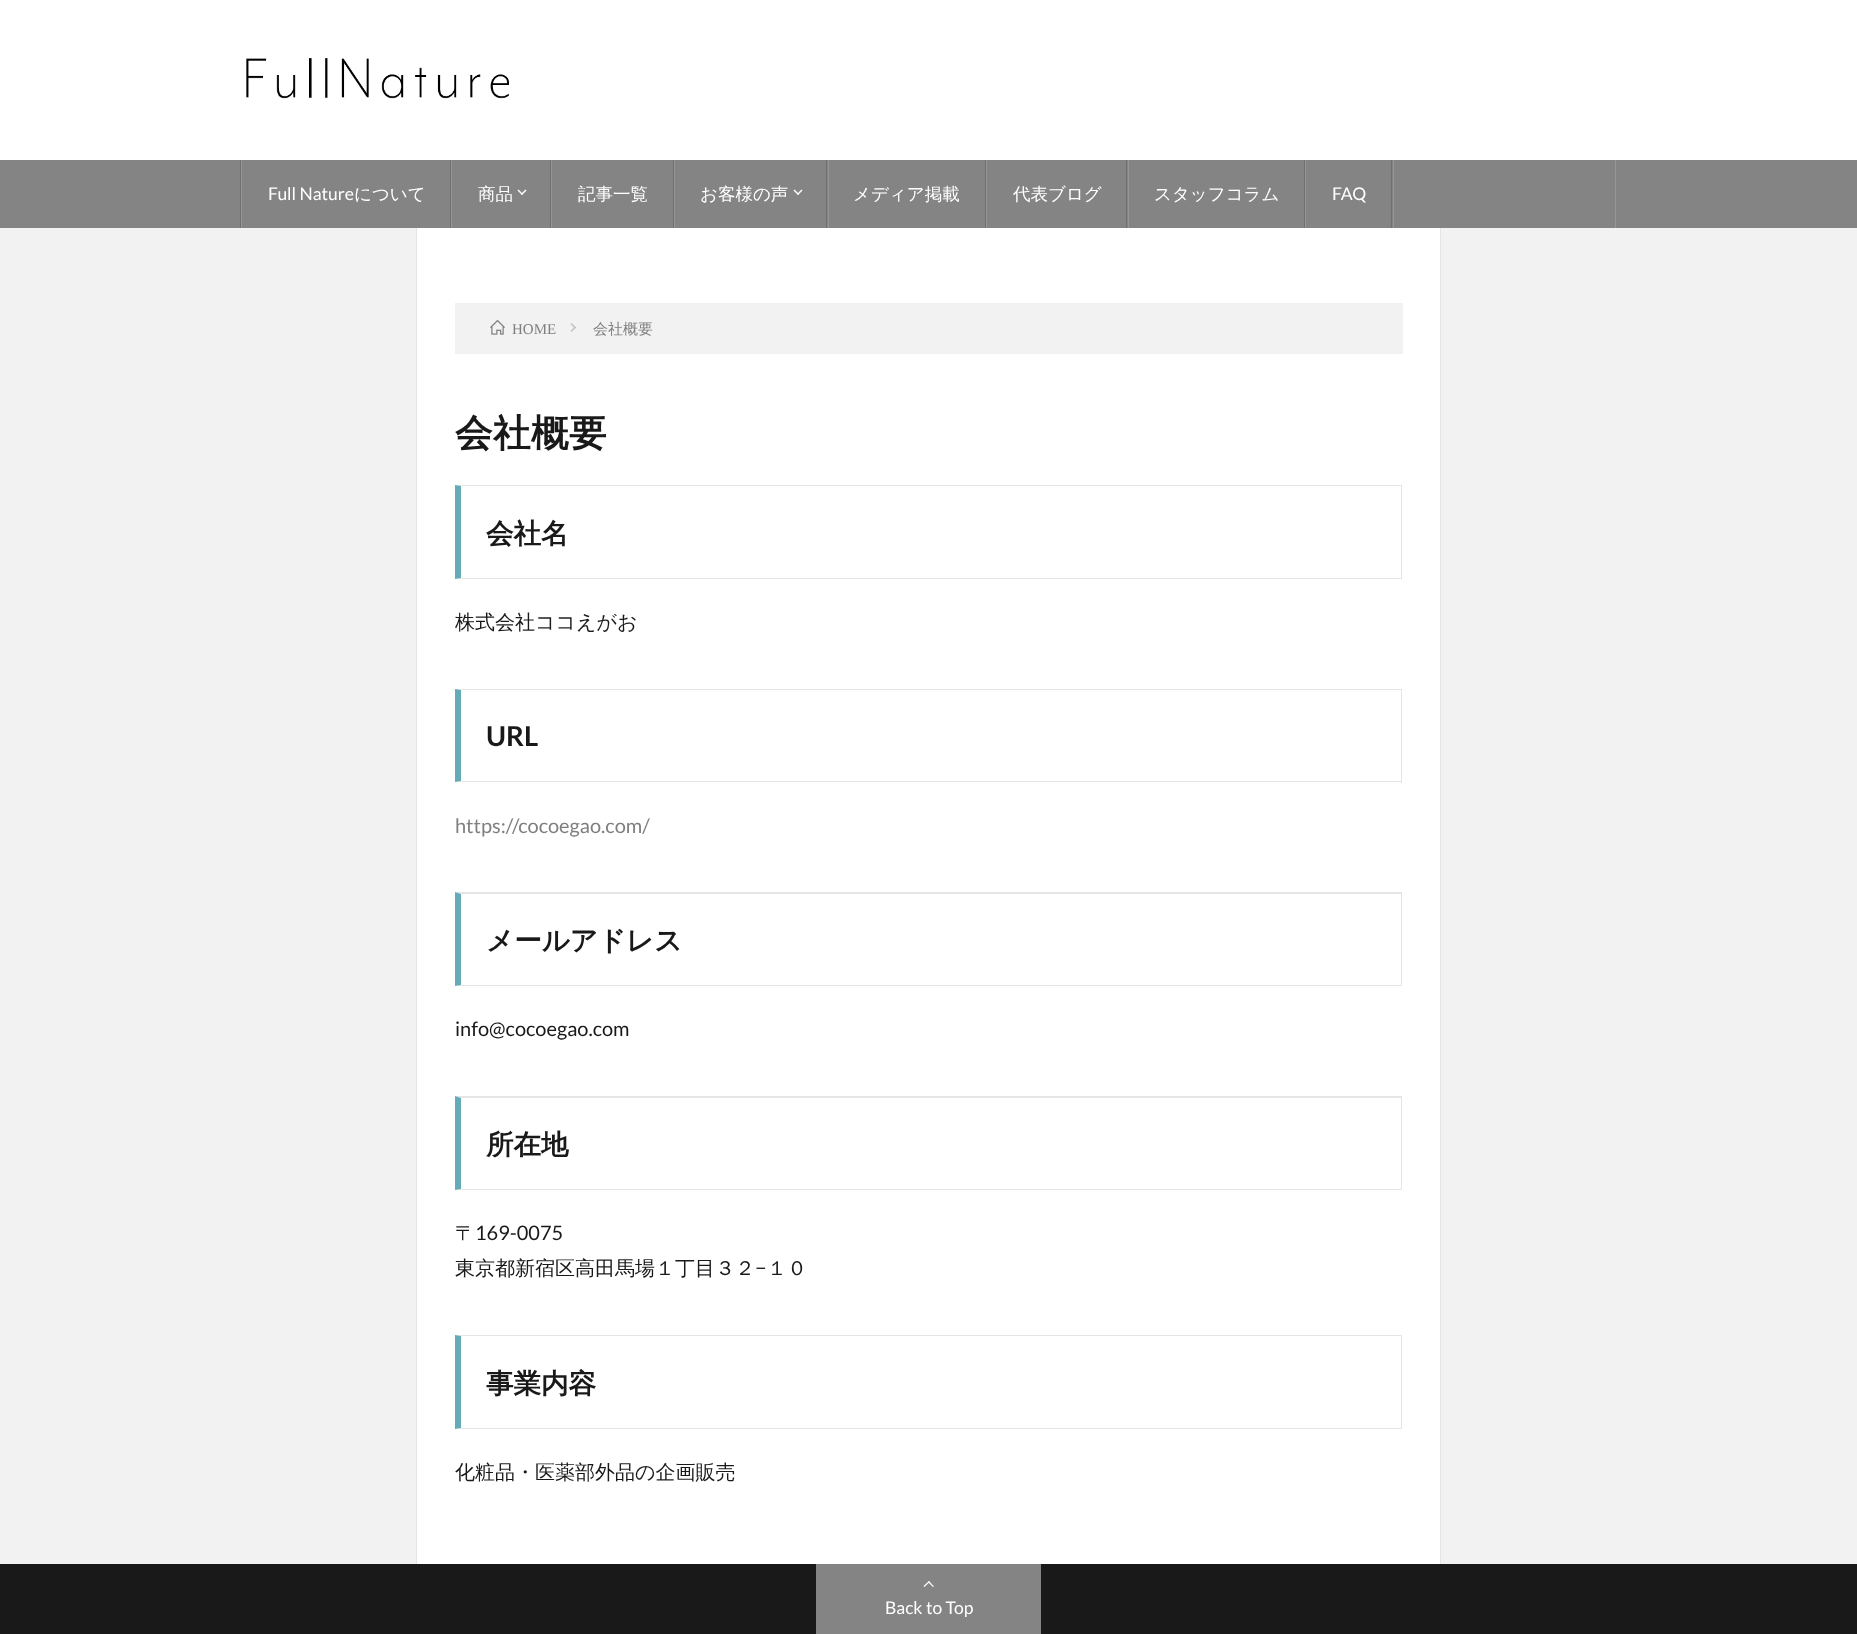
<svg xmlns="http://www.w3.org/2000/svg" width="1857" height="1634">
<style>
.a{font:17.5px Lato;fill:#fff}
.b{font:500 17.5px WenQuanYi Zen Hei;fill:#fff}
.c{font:15px Liberation Serif;fill:#7f7f7f}
.d{font:500 15px WenQuanYi Zen Hei;fill:#7f7f7f}
.e{font:bold 37.5px WenQuanYi Zen Hei;letter-spacing:0.5px;fill:#191919}
.f{font:bold 27.5px WenQuanYi Zen Hei;fill:#191919}
.g{font:500 20px WenQuanYi Zen Hei;fill:#191919}
.h{font:bold 27.5px Lato;fill:#191919}
.i{font:20px Lato;fill:#7f7f7f}
.j{font:20px Lato;fill:#191919}
</style>
<rect width="100%" height="100%" fill="#f2f2f2"/>
<path fill="#fff" d="M0 0h1857v160H0z"/>
<path fill="#848484" d="M0 160h1857v68H0z"/>
<image href="1.png" x="246" y="58" width="264" height="41"/>
<path fill="#969696" d="M1615 160h1v68H1615z"/>
<path fill="#707070" d="M450 160h1v68H450z"/>
<path fill="#969696" d="M241 160h1v68H241z"/>
<path fill="#707070" d="M240 160h1v68H240z"/>
<path fill="#707070" d="M550 160h1v68H550z"/>
<path fill="#969696" d="M451 160h1v68H451z"/>
<path fill="#fff" d="M525.5 189.5l1 1l-4.5 4.5l-1-1z"/>
<path fill="#fff" d="M518.5 189.5l4.5 4.5l-1 1l-4.5-4.5z"/>
<path fill="#707070" d="M673 160h1v68H673z"/>
<path fill="#969696" d="M551 160h1v68H551z"/>
<path fill="#707070" d="M826 160h1v68H826z"/>
<path fill="#969696" d="M674 160h1v68H674z"/>
<path fill="#fff" d="M801.5 189.5l1 1l-4.5 4.5l-1-1z"/>
<path fill="#fff" d="M794.5 189.5l4.5 4.5l-1 1l-4.5-4.5z"/>
<path fill="#707070" d="M985 160h1v68H985z"/>
<path fill="#969696" d="M828 160h1v68H828z"/>
<path fill="#707070" d="M1126 160h1v68H1126z"/>
<path fill="#969696" d="M986 160h1v68H986z"/>
<path fill="#707070" d="M1304 160h1v68H1304z"/>
<path fill="#969696" d="M1128 160h1v68H1128z"/>
<path fill="#707070" d="M1391 160h1v68H1391z"/>
<path fill="#969696" d="M1305 160h1v68H1305z"/>
<path fill="#969696" d="M1393 160h1v68H1393z"/>
<path fill="#fff" d="M417 228h1023v1336H417z"/>
<path fill="#e5e5e5" d="M1440 228h1v1336H1440z"/>
<path fill="#e5e5e5" d="M416 228h1v1336H416z"/>
<path fill="#f2f2f2" d="M455 303h948v51H455z"/>
<image href="2.png" x="490" y="319" width="15" height="16"/>
<path fill="#bfbfbf" d="M571.5 323l4.5 4.5l-1 1l-4.5-4.5z"/>
<path fill="#bfbfbf" d="M575 326.5l1 1l-4.5 4.5l-1-1z"/>
<path fill="#e5e5e5" d="M455 485h947l-1 1h-940z"/>
<path fill="#e5e5e5" d="M1401 485h1v94H1401z"/>
<path fill="#e5e5e5" d="M1402 579h-947l6-1h940z"/>
<path fill="#63acb7" d="M455 579v-94l6 1v92z"/>
<path fill="#e5e5e5" d="M455 689h947l-1 1h-940z"/>
<path fill="#e5e5e5" d="M1401 689h1v94H1401z"/>
<path fill="#e5e5e5" d="M1402 782h-947l6-1h940z"/>
<path fill="#63acb7" d="M455 782v-93l6 1v91z"/>
<path fill="#e5e5e5" d="M455 892h947l-1 2h-940z"/>
<path fill="#e5e5e5" d="M1401 893h1v93H1401z"/>
<path fill="#e5e5e5" d="M1402 986h-947l6-1h940z"/>
<path fill="#63acb7" d="M455 986v-94l6 2v91z"/>
<path fill="#e5e5e5" d="M455 1096h947l-1 2h-940z"/>
<path fill="#e5e5e5" d="M1401 1096h1v94H1401z"/>
<path fill="#e5e5e5" d="M1402 1190h-947l6-1h940z"/>
<path fill="#63acb7" d="M455 1190v-94l6 2v91z"/>
<path fill="#e5e5e5" d="M455 1335h947l-1 1h-940z"/>
<path fill="#e5e5e5" d="M1401 1335h1v94H1401z"/>
<path fill="#e5e5e5" d="M1402 1429h-947l6-1h940z"/>
<path fill="#63acb7" d="M455 1429v-94l6 1v92z"/>
<path fill="#191919" d="M0 1564h1857v70H0z"/>
<path fill="#848484" d="M816 1564h225v70H816z"/>
<path fill="#fff" d="M929 1581l5 5.5l-1 .5l-5-5z"/>
<path fill="#fff" d="M929 1581l.5 1l-5 5l-1-1z"/>
<text class="a" x="268" y="200">Full Nature</text>
<text class="b" x="354" y="200">について</text>
<text class="b" x="478" y="200">商品</text>
<text class="b" x="578" y="200">記事一覧</text>
<text class="b" x="700" y="200">お客様の声</text>
<text class="b" x="853" y="200">メディア掲載</text>
<text class="b" x="1013" y="200">代表ブログ</text>
<text class="b" x="1154" y="200">スタッフコラム</text>
<text class="a" x="1332" y="200">FAQ</text>
<text class="c" x="512" y="334">HOME</text>
<text class="d" x="593" y="334">会社概要</text>
<text class="e" x="455" y="446">会社概要</text>
<text class="f" x="486" y="543">会社名</text>
<text class="g" x="455" y="629">株式会社ココえがお</text>
<text class="h" x="486" y="746">URL</text>
<text class="i" x="455" y="833">https://cocoegao.com/</text>
<text class="f" x="486" y="950">メールアドレス</text>
<text class="j" x="455" y="1036">info@cocoegao.com</text>
<text class="f" x="486" y="1154">所在地</text>
<text class="g" x="455" y="1240">〒</text>
<text class="j" x="475" y="1240">169-0075</text>
<text class="g" x="455" y="1275">東京都新宿区高田馬場１丁目３２</text>
<text class="j" x="755" y="1275">−</text>
<text class="g" x="767" y="1275">１０</text>
<text class="f" x="486" y="1393">事業内容</text>
<text class="g" x="455" y="1479">化粧品・医薬部外品の企画販売</text>
<text class="a" x="885" y="1614">Back to Top</text>
</svg>
